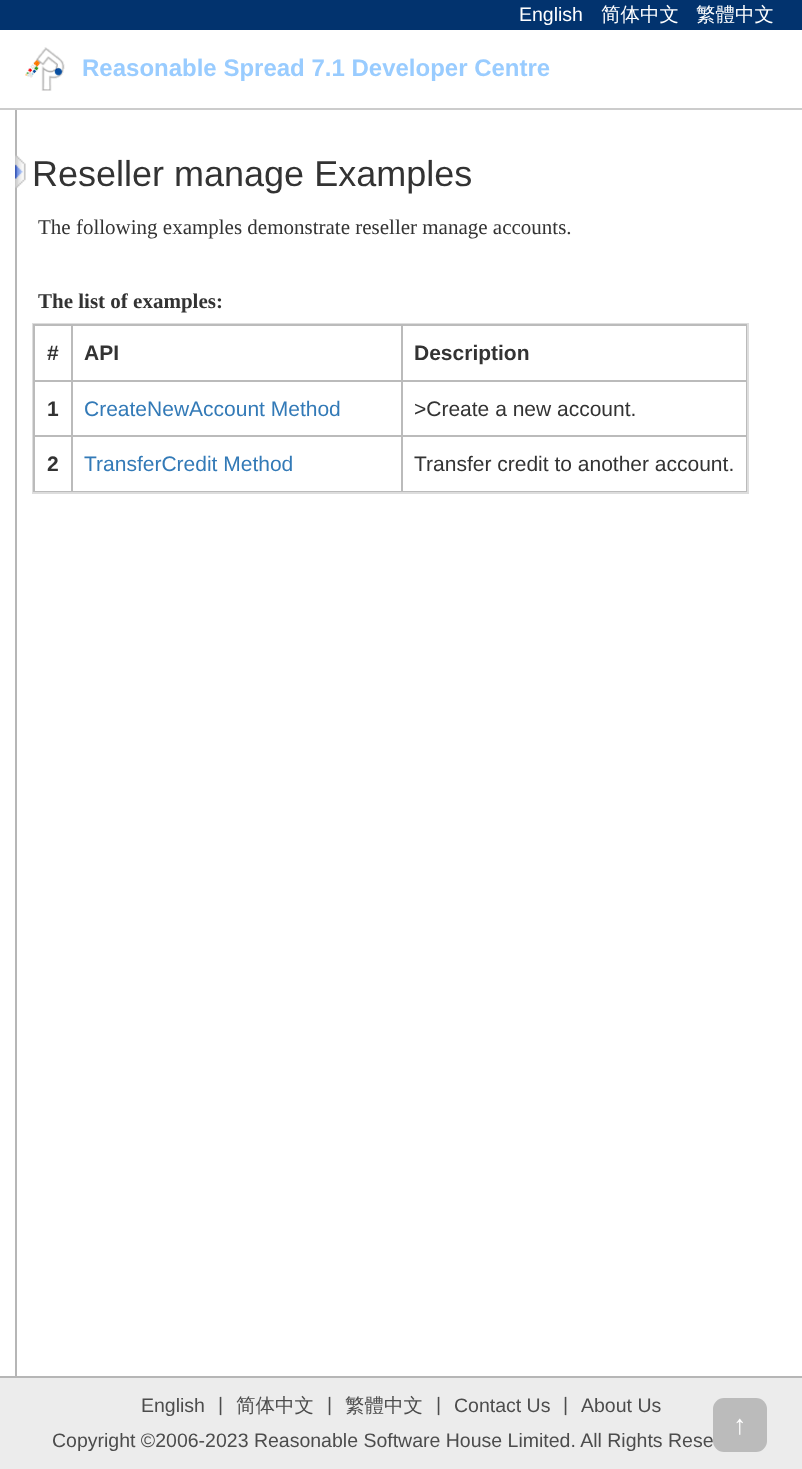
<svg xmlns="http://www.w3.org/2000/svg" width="802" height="1469">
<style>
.a{font:19.5px Liberation Sans;fill:#fff}
.b{font:500 19.5px WenQuanYi Zen Hei;fill:#fff}
.c{font:bold 24px Liberation Sans;fill:#9cf}
.d{font:36px Liberation Sans;fill:#333}
.e{font:21px Liberation Serif;fill:#333}
.f{font:bold 21px Liberation Serif;fill:#333}
.g{font:bold 21px Liberation Sans;fill:#333}
.h{font:21px Liberation Sans;fill:#337ab7}
.i{font:21px Liberation Sans;fill:#333}
.j{font:19.5px Liberation Sans;fill:#4c4c4c}
.k{font:500 19.5px WenQuanYi Zen Hei;fill:#4c4c4c}
.l{font:bold 27px Liberation Serif;fill:#fff}
</style>
<rect width="100%" height="100%" fill="#fff"/>
<path fill="#ccc" d="M0 108h802v2H0z"/>
<path fill="#02336e" d="M0 0h802v30H0z"/>
<image href="1.png" x="25" y="47" width="40" height="44"/>
<path fill="#b6b6b6" d="M15 110h2v1266H15z"/>
<image href="2.png" x="15" y="155" width="11" height="33"/>
<path fill="none" stroke="#ddd" stroke-width="2" d="M33 324h715v169H33z"/>
<path fill="#bbb" d="M33 324h714v2H33z"/>
<path fill="#bbb" d="M746 324h1v168H746z"/>
<path fill="#bbb" d="M33 491h714v1H33z"/>
<path fill="#bbb" d="M33 324h2v168H33z"/>
<path fill="#bbb" d="M401 380h346v2H401z"/>
<path fill="#bbb" d="M401 435h346v2H401z"/>
<path fill="#bbb" d="M401 435h2v57H401z"/>
<path fill="#bbb" d="M71 435h331v2H71z"/>
<path fill="#bbb" d="M401 380h2v57H401z"/>
<path fill="#bbb" d="M71 380h331v2H71z"/>
<path fill="#bbb" d="M71 435h2v57H71z"/>
<path fill="#bbb" d="M33 435h39v2H33z"/>
<path fill="#bbb" d="M71 380h2v57H71z"/>
<path fill="#bbb" d="M33 380h39v2H33z"/>
<path fill="#bbb" d="M71 324h2v57H71z"/>
<path fill="#bbb" d="M401 324h2v57H401z"/>
<path fill="#ececec" d="M0 1378h802v91H0z"/>
<path fill="#b6b6b6" d="M0 1376h802v2H0z"/>
<rect fill="#bbb" x="713" y="1398" width="54" height="54" rx="11"/>
<text class="a" x="519" y="21">English</text>
<text class="b" x="601" y="21">简体中文</text>
<text class="b" x="696" y="21">繁體中文</text>
<text class="c" x="82" y="76">Reasonable Spread 7.1 Developer Centre</text>
<text class="d" x="32" y="186">Reseller manage Examples</text>
<text class="e" x="38" y="234">The following examples demonstrate reseller manage accounts.</text>
<text class="f" x="38" y="308">The list of examples:</text>
<text class="g" x="47" y="360">#</text>
<text class="g" x="84" y="360">API</text>
<text class="g" x="414" y="360">Description</text>
<text class="g" x="47" y="416">1</text>
<text class="h" x="84" y="416">CreateNewAccount Method</text>
<text class="i" x="414" y="416">&gt;Create a new account.</text>
<text class="g" x="47" y="471">2</text>
<text class="h" x="84" y="471">TransferCredit Method</text>
<text class="i" x="414" y="471">Transfer credit to another account.</text>
<text class="j" x="141" y="1412">English</text>
<text class="j" x="218" y="1411">|</text>
<text class="k" x="236" y="1412">简体中文</text>
<text class="j" x="327" y="1411">|</text>
<text class="k" x="345" y="1412">繁體中文</text>
<text class="j" x="436" y="1411">|</text>
<text class="j" x="454" y="1412">Contact Us</text>
<text class="j" x="563" y="1411">|</text>
<text class="j" x="581" y="1412">About Us</text>
<text class="j" x="52" y="1447">Copyright ©2006-2023 Reasonable Software House Limited. All Rights Rese</text>
<text class="l" x="733" y="1434">↑</text>
</svg>
